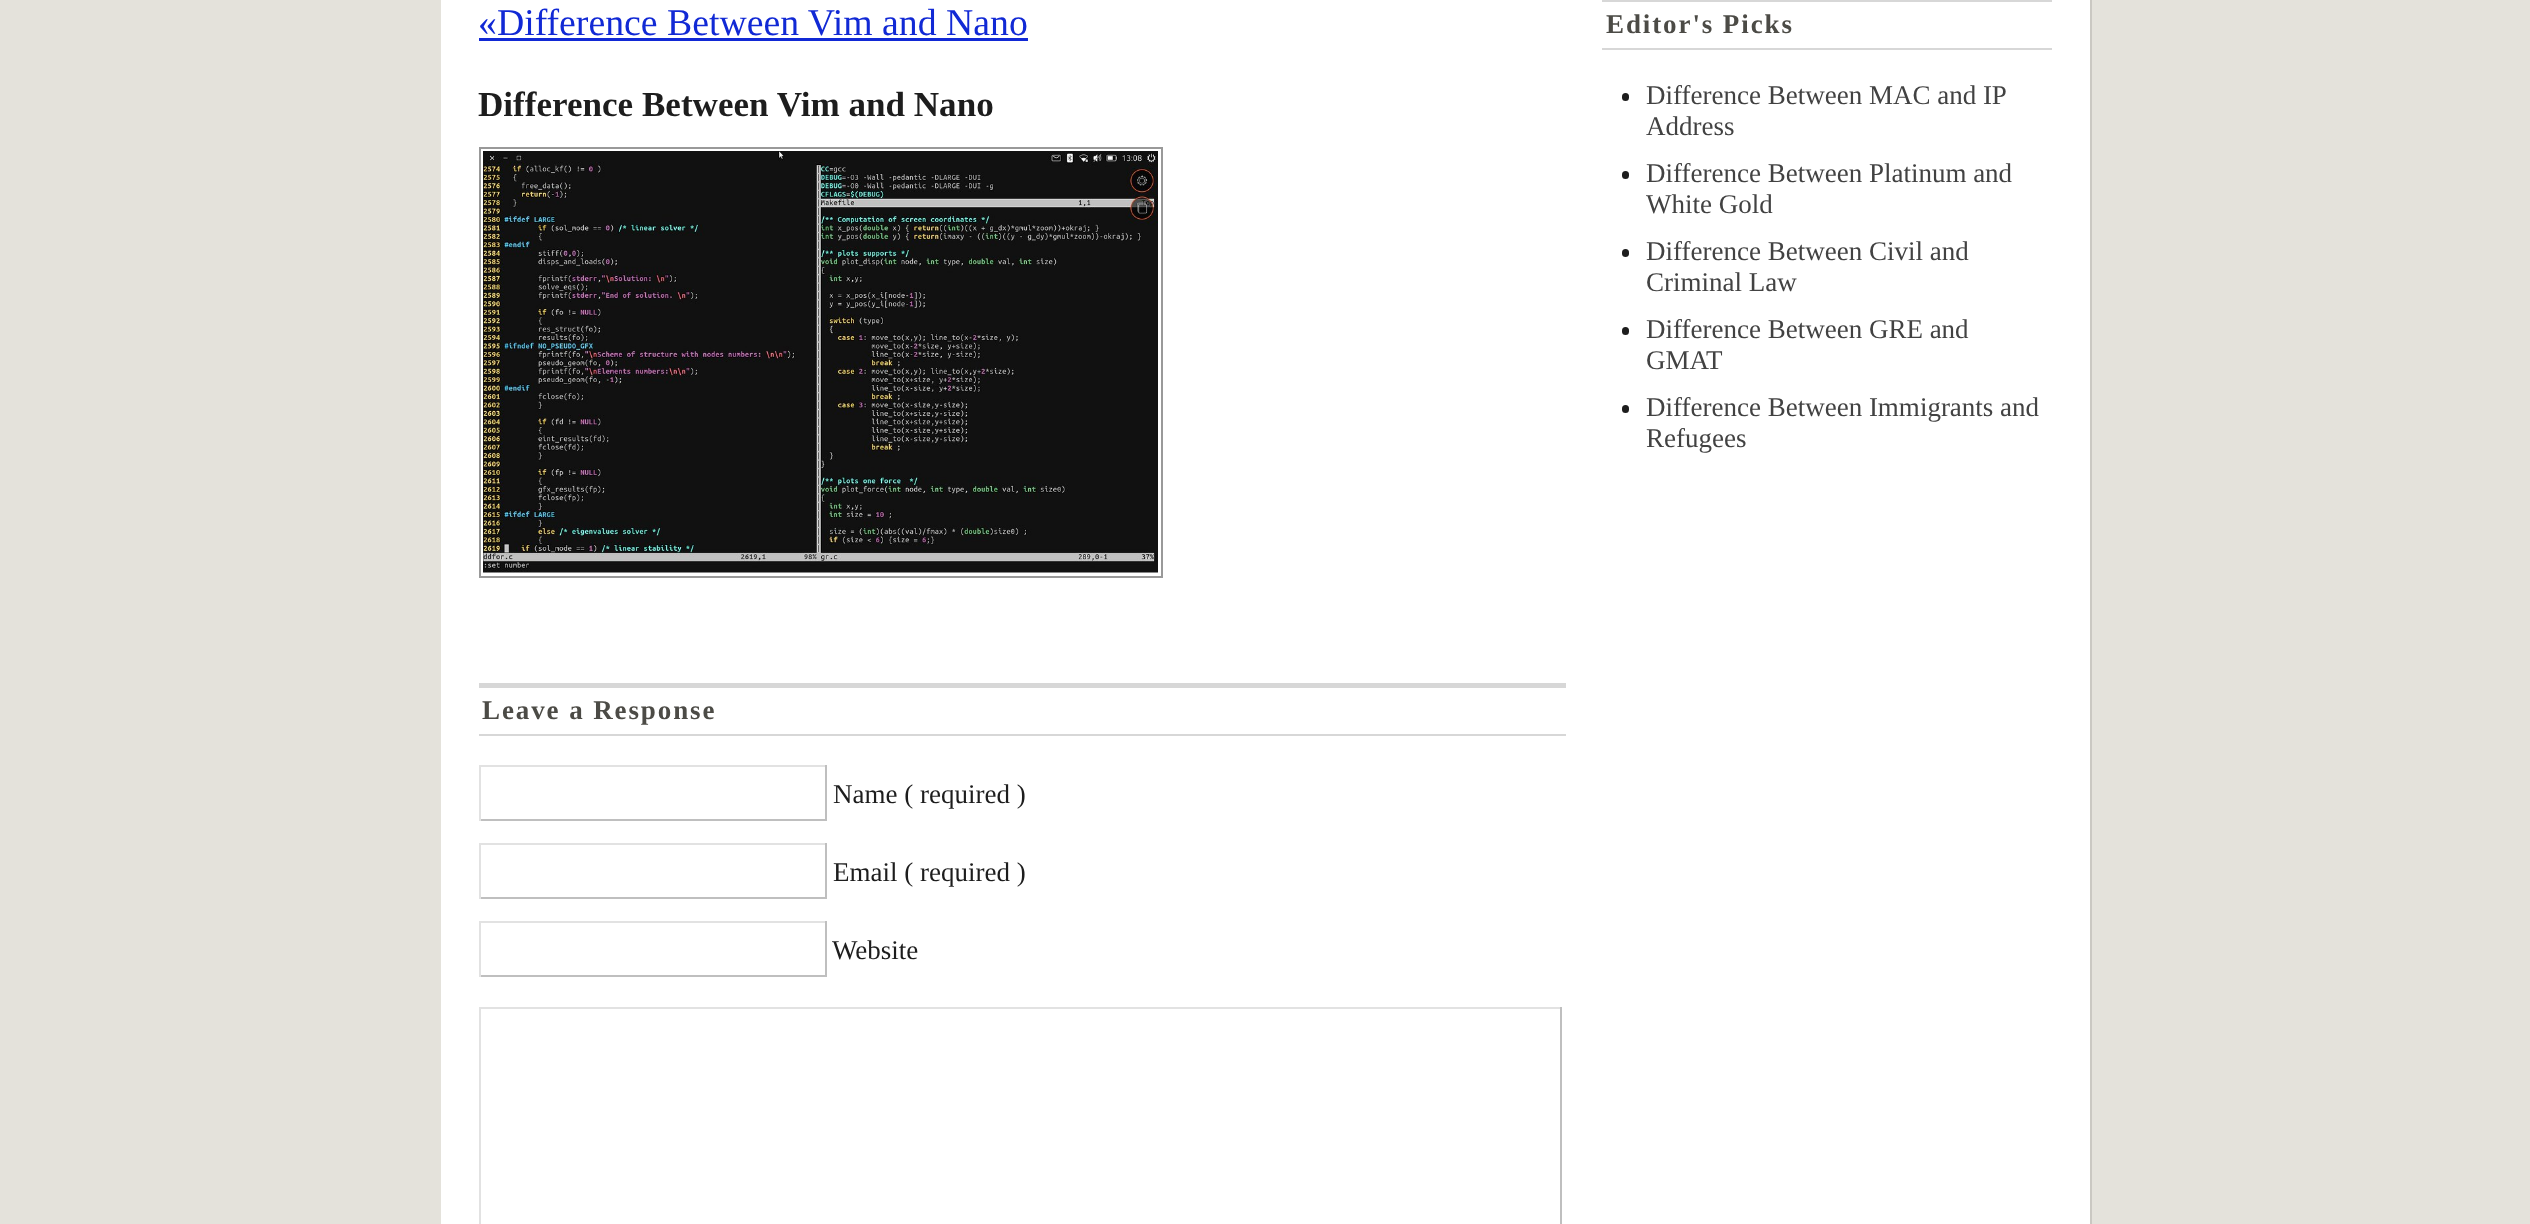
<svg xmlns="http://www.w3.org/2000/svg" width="2530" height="1224">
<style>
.a{font:37.75px Liberation Serif;fill:#1129d5}
.b{font:bold 35.1px Liberation Serif;fill:#1d1d1d}
.c{font:bold 27px Liberation Serif;letter-spacing:1.9px;fill:#4c4b46}
.d{font:27px Liberation Serif;fill:#1d1d1d}
.e{font:27px Liberation Serif;fill:#424242}
</style>
<rect width="100%" height="100%" fill="#e4e2db"/>
<path fill="#fff" d="M441 0h1649v1224H441z"/>
<path fill="#cac8c2" d="M2090 0h2v1224H2090z"/>
<path fill="#1129d5" d="M479 38h549v3H479z"/>
<path fill="none" stroke="#999" stroke-width="2" d="M480 148h682v429H480z"/>
<image href="1.png" x="483" y="151" width="675" height="422"/>
<path fill="#d7d7d7" d="M479 683h1087v5H479z"/>
<path fill="#d7d7d7" d="M479 734h1087v2H479z"/>
<path fill="#e2e2e2" d="M479 765h348v2H479z"/>
<path fill="#bfbfbf" d="M825 765h2v56H825z"/>
<path fill="#bfbfbf" d="M479 819h348v2H479z"/>
<path fill="#e2e2e2" d="M479 765h2v56H479z"/>
<path fill="#e2e2e2" d="M479 843h348v2H479z"/>
<path fill="#bfbfbf" d="M825 843h2v56H825z"/>
<path fill="#bfbfbf" d="M479 897h348v2H479z"/>
<path fill="#e2e2e2" d="M479 843h2v56H479z"/>
<path fill="#e2e2e2" d="M479 921h348v2H479z"/>
<path fill="#bfbfbf" d="M825 921h2v56H825z"/>
<path fill="#bfbfbf" d="M479 975h348v2H479z"/>
<path fill="#e2e2e2" d="M479 921h2v56H479z"/>
<path fill="#e2e2e2" d="M479 1007h1083v2H479z"/>
<path fill="#bfbfbf" d="M1560 1007h2v217H1560z"/>
<path fill="#e2e2e2" d="M479 1007h2v217H479z"/>
<path fill="#d7d7d7" d="M1602 0h450v2H1602z"/>
<path fill="#d7d7d7" d="M1602 48h450v2H1602z"/>
<rect fill="#1d1d1d" x="1622" y="93" width="7" height="8" rx="3.5"/>
<rect fill="#1d1d1d" x="1622" y="171" width="7" height="8" rx="3.5"/>
<rect fill="#1d1d1d" x="1622" y="249" width="7" height="8" rx="3.5"/>
<rect fill="#1d1d1d" x="1622" y="327" width="7" height="8" rx="3.5"/>
<rect fill="#1d1d1d" x="1622" y="405" width="7" height="8" rx="3.5"/>
<text class="a" x="478" y="35">«Difference Between Vim and Nano</text>
<text class="b" x="478" y="116">Difference Between Vim and Nano</text>
<text class="c" x="482" y="719">Leave a Response</text>
<text class="d" x="833" y="803">Name ( required )</text>
<text class="d" x="833" y="881">Email ( required )</text>
<text class="d" x="832" y="959">Website</text>
<text class="c" x="1606" y="33">Editor's Picks</text>
<text class="e" x="1646" y="104">Difference Between MAC and IP</text>
<text class="e" x="1646" y="135">Address</text>
<text class="e" x="1646" y="182">Difference Between Platinum and</text>
<text class="e" x="1646" y="213">White Gold</text>
<text class="e" x="1646" y="260">Difference Between Civil and</text>
<text class="e" x="1646" y="291">Criminal Law</text>
<text class="e" x="1646" y="338">Difference Between GRE and</text>
<text class="e" x="1646" y="369">GMAT</text>
<text class="e" x="1646" y="416">Difference Between Immigrants and</text>
<text class="e" x="1646" y="447">Refugees</text>
</svg>
